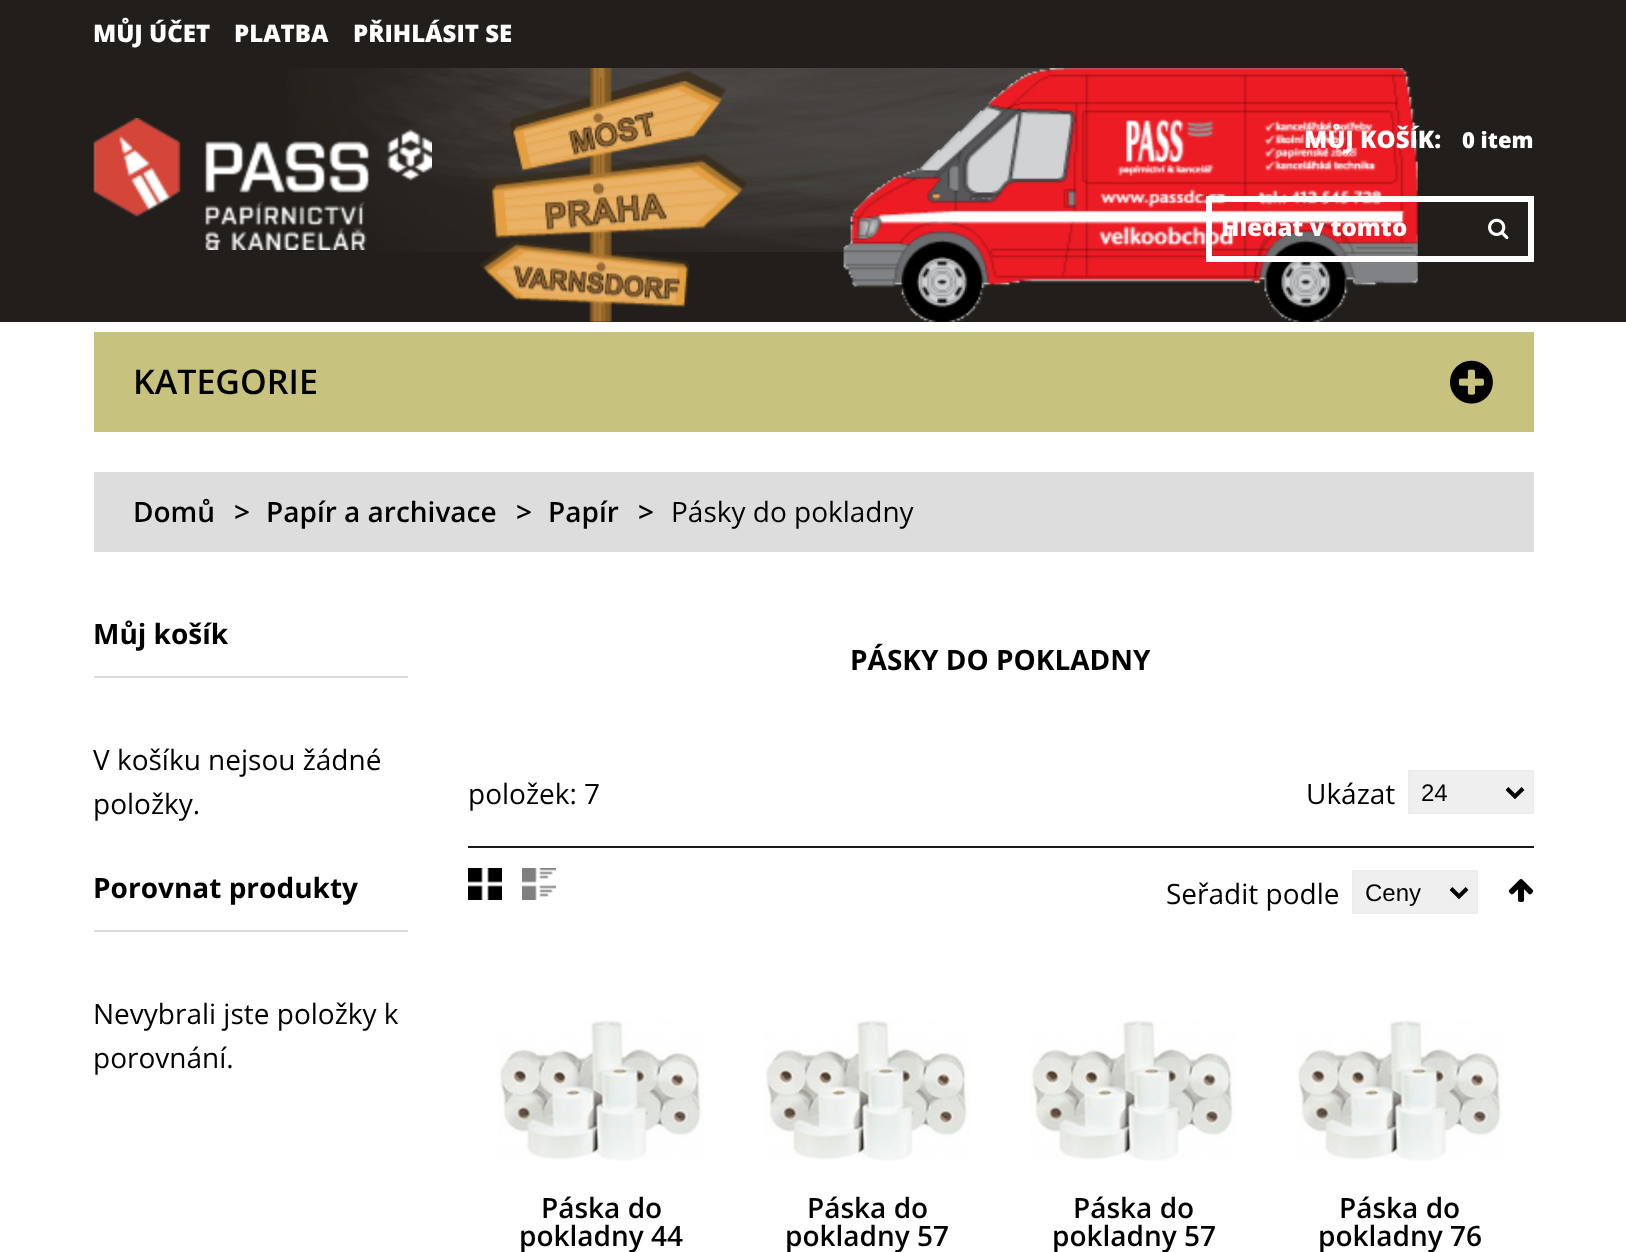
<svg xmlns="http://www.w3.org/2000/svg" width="1626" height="1252">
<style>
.a{font:800 24px Open Sans;fill:#fff}
.b{font:800 22px Open Sans;fill:#fff}
.c{font:600 34px Open Sans;fill:#000}
.d{font:600 28px Open Sans;fill:#000}
.e{font:28px Open Sans;fill:#000}
.f{font:bold 28px Open Sans;fill:#000}
.g{font:24px Liberation Sans;fill:#000}
</style>
<rect width="100%" height="100%" fill="#fff"/>
<path fill="#221e1b" d="M0 0h1626v322H0z"/>
<image href="2.png" x="286" y="68" width="1122" height="184"/>
<image href="1.png" x="93" y="118" width="339" height="132"/>
<image href="3.png" x="479" y="68" width="268" height="254"/>
<image href="4.png" x="843" y="68" width="575" height="254"/>
<path fill="none" stroke="#fff" stroke-width="6" d="M1209 199h322v60H1209z"/>
<image href="5.png" x="1488" y="218" width="21" height="22"/>
<path fill="#c7c27e" d="M94 332h1440v100H94z"/>
<image href="6.png" x="1450" y="360" width="43" height="44"/>
<path fill="#ddd" d="M94 472h1440v80H94z"/>
<path fill="#ddd" d="M94 676h314v2H94z"/>
<path fill="#ddd" d="M94 930h314v2H94z"/>
<path fill="#191919" d="M468 846h1066v2H468z"/>
<path fill="#efefef" stroke="#ececec" stroke-width="2" d="M1409 771h124v42H1409z"/>
<path fill="none" stroke="#000" stroke-width="4" d="M1507 788.5l8 8l8-8"/>
<image href="7.png" x="468" y="868" width="34" height="32"/>
<image href="8.png" x="522" y="868" width="34" height="32"/>
<path fill="#efefef" stroke="#ececec" stroke-width="2" d="M1353 871h124v42H1353z"/>
<path fill="none" stroke="#000" stroke-width="4" d="M1451 888.5l8 8l8-8"/>
<image href="9.png" x="1508" y="879" width="26" height="23"/>
<image href="10.png" x="498" y="1020" width="206" height="141"/>
<image href="11.png" x="764" y="1020" width="206" height="141"/>
<image href="11.png" x="1030" y="1020" width="206" height="141"/>
<image href="12.png" x="1296" y="1020" width="208" height="141"/>
<text class="a" x="93" y="42">MŮJ ÚČET</text>
<text class="a" x="234" y="42">PLATBA</text>
<text class="a" x="353" y="42">PŘIHLÁSIT SE</text>
<text class="a" x="1304" y="148">MŮJ KOŠÍK:</text>
<text class="b" x="1462" y="148">0 item</text>
<text class="a" x="1221" y="236">Hledat v tomto</text>
<text class="c" x="133" y="394">KATEGORIE</text>
<text class="d" x="133" y="522">Domů</text>
<text class="d" x="234" y="522">&gt;</text>
<text class="d" x="266" y="522">Papír a archivace</text>
<text class="d" x="516" y="522">&gt;</text>
<text class="d" x="548" y="522">Papír</text>
<text class="d" x="638" y="522">&gt;</text>
<text class="e" x="671" y="522">Pásky do pokladny</text>
<text class="f" x="93" y="644">Můj košík</text>
<text class="e" x="93" y="770">V košíku nejsou žádné</text>
<text class="e" x="93" y="814">položky.</text>
<text class="f" x="93" y="898">Porovnat produkty</text>
<text class="e" x="93" y="1024">Nevybrali jste položky k</text>
<text class="e" x="93" y="1068">porovnání.</text>
<text class="f" x="850" y="670">PÁSKY DO POKLADNY</text>
<text class="e" x="468" y="804">položek: 7</text>
<text class="e" x="1306" y="804">Ukázat</text>
<text class="g" x="1421" y="801">24</text>
<text class="e" x="1166" y="904">Seřadit podle</text>
<text class="g" x="1365" y="901">Ceny</text>
<text class="d" x="541" y="1218">Páska do</text>
<text class="d" x="519" y="1246">pokladny 44</text>
<text class="d" x="807" y="1218">Páska do</text>
<text class="d" x="785" y="1246">pokladny 57</text>
<text class="d" x="1073" y="1218">Páska do</text>
<text class="d" x="1052" y="1246">pokladny 57</text>
<text class="d" x="1339" y="1218">Páska do</text>
<text class="d" x="1318" y="1246">pokladny 76</text>
</svg>
